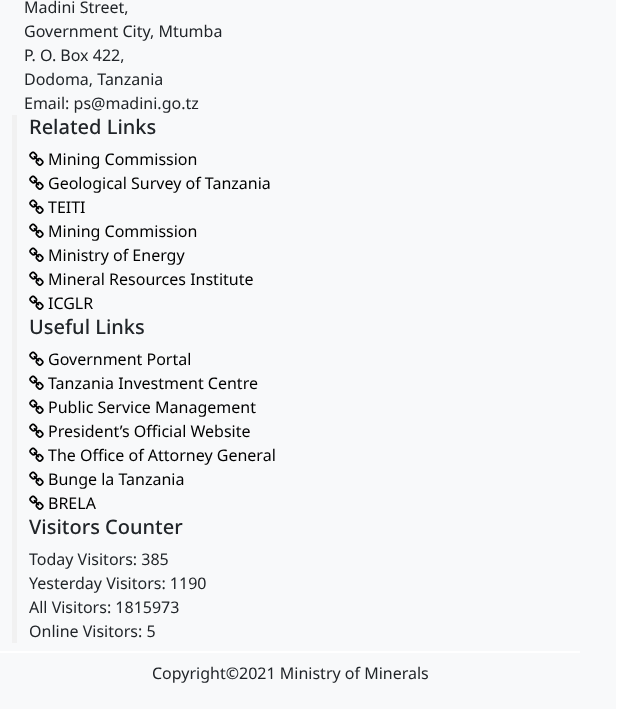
<svg xmlns="http://www.w3.org/2000/svg" width="628" height="717">
<style>
.a{font:16px Noto Sans;fill:#212529}
.b{font:500 20px Noto Sans;fill:#212529}
.c{font:16px Noto Sans;fill:#000}
</style>
<rect width="100%" height="100%" fill="#fff"/>
<path fill="#f8f9fa" d="M0 0h616v709H0z"/>
<path fill="#f1f1f1" d="M12 115h5v528H12z"/>
<image href="1.png" x="29" y="151" width="15" height="15"/>
<image href="1.png" x="29" y="175" width="15" height="15"/>
<image href="1.png" x="29" y="199" width="15" height="15"/>
<image href="1.png" x="29" y="223" width="15" height="15"/>
<image href="1.png" x="29" y="247" width="15" height="15"/>
<image href="1.png" x="29" y="271" width="15" height="15"/>
<image href="1.png" x="29" y="295" width="15" height="15"/>
<image href="1.png" x="29" y="351" width="15" height="15"/>
<image href="1.png" x="29" y="375" width="15" height="15"/>
<image href="1.png" x="29" y="399" width="15" height="15"/>
<image href="1.png" x="29" y="423" width="15" height="15"/>
<image href="1.png" x="29" y="447" width="15" height="15"/>
<image href="1.png" x="29" y="471" width="15" height="15"/>
<image href="1.png" x="29" y="495" width="15" height="15"/>
<path fill="#fff" d="M0 651h580v2H0z"/>
<text class="a" x="24" y="13">Madini Street,</text>
<text class="a" x="24" y="37">Government City, Mtumba</text>
<text class="a" x="24" y="61">P. O. Box 422,</text>
<text class="a" x="24" y="85">Dodoma, Tanzania</text>
<text class="a" x="24" y="109">Email: ps@madini.go.tz</text>
<text class="b" x="29" y="134">Related Links</text>
<text class="c" x="48" y="165">Mining Commission</text>
<text class="c" x="48" y="189">Geological Survey of Tanzania</text>
<text class="c" x="48" y="213">TEITI</text>
<text class="c" x="48" y="237">Mining Commission</text>
<text class="c" x="48" y="261">Ministry of Energy</text>
<text class="c" x="48" y="285">Mineral Resources Institute</text>
<text class="c" x="48" y="309">ICGLR</text>
<text class="b" x="29" y="334">Useful Links</text>
<text class="c" x="48" y="365">Government Portal</text>
<text class="c" x="48" y="389">Tanzania Investment Centre</text>
<text class="c" x="48" y="413">Public Service Management</text>
<text class="c" x="48" y="437">President’s Official Website</text>
<text class="c" x="48" y="461">The Office of Attorney General</text>
<text class="c" x="48" y="485">Bunge la Tanzania</text>
<text class="c" x="48" y="509">BRELA</text>
<text class="b" x="29" y="534">Visitors Counter</text>
<text class="a" x="29" y="565">Today Visitors: 385</text>
<text class="a" x="29" y="589">Yesterday Visitors: 1190</text>
<text class="a" x="29" y="613">All Visitors: 1815973</text>
<text class="a" x="29" y="637">Online Visitors: 5</text>
<text class="a" x="152" y="679">Copyright©2021 Ministry of Minerals</text>
</svg>
